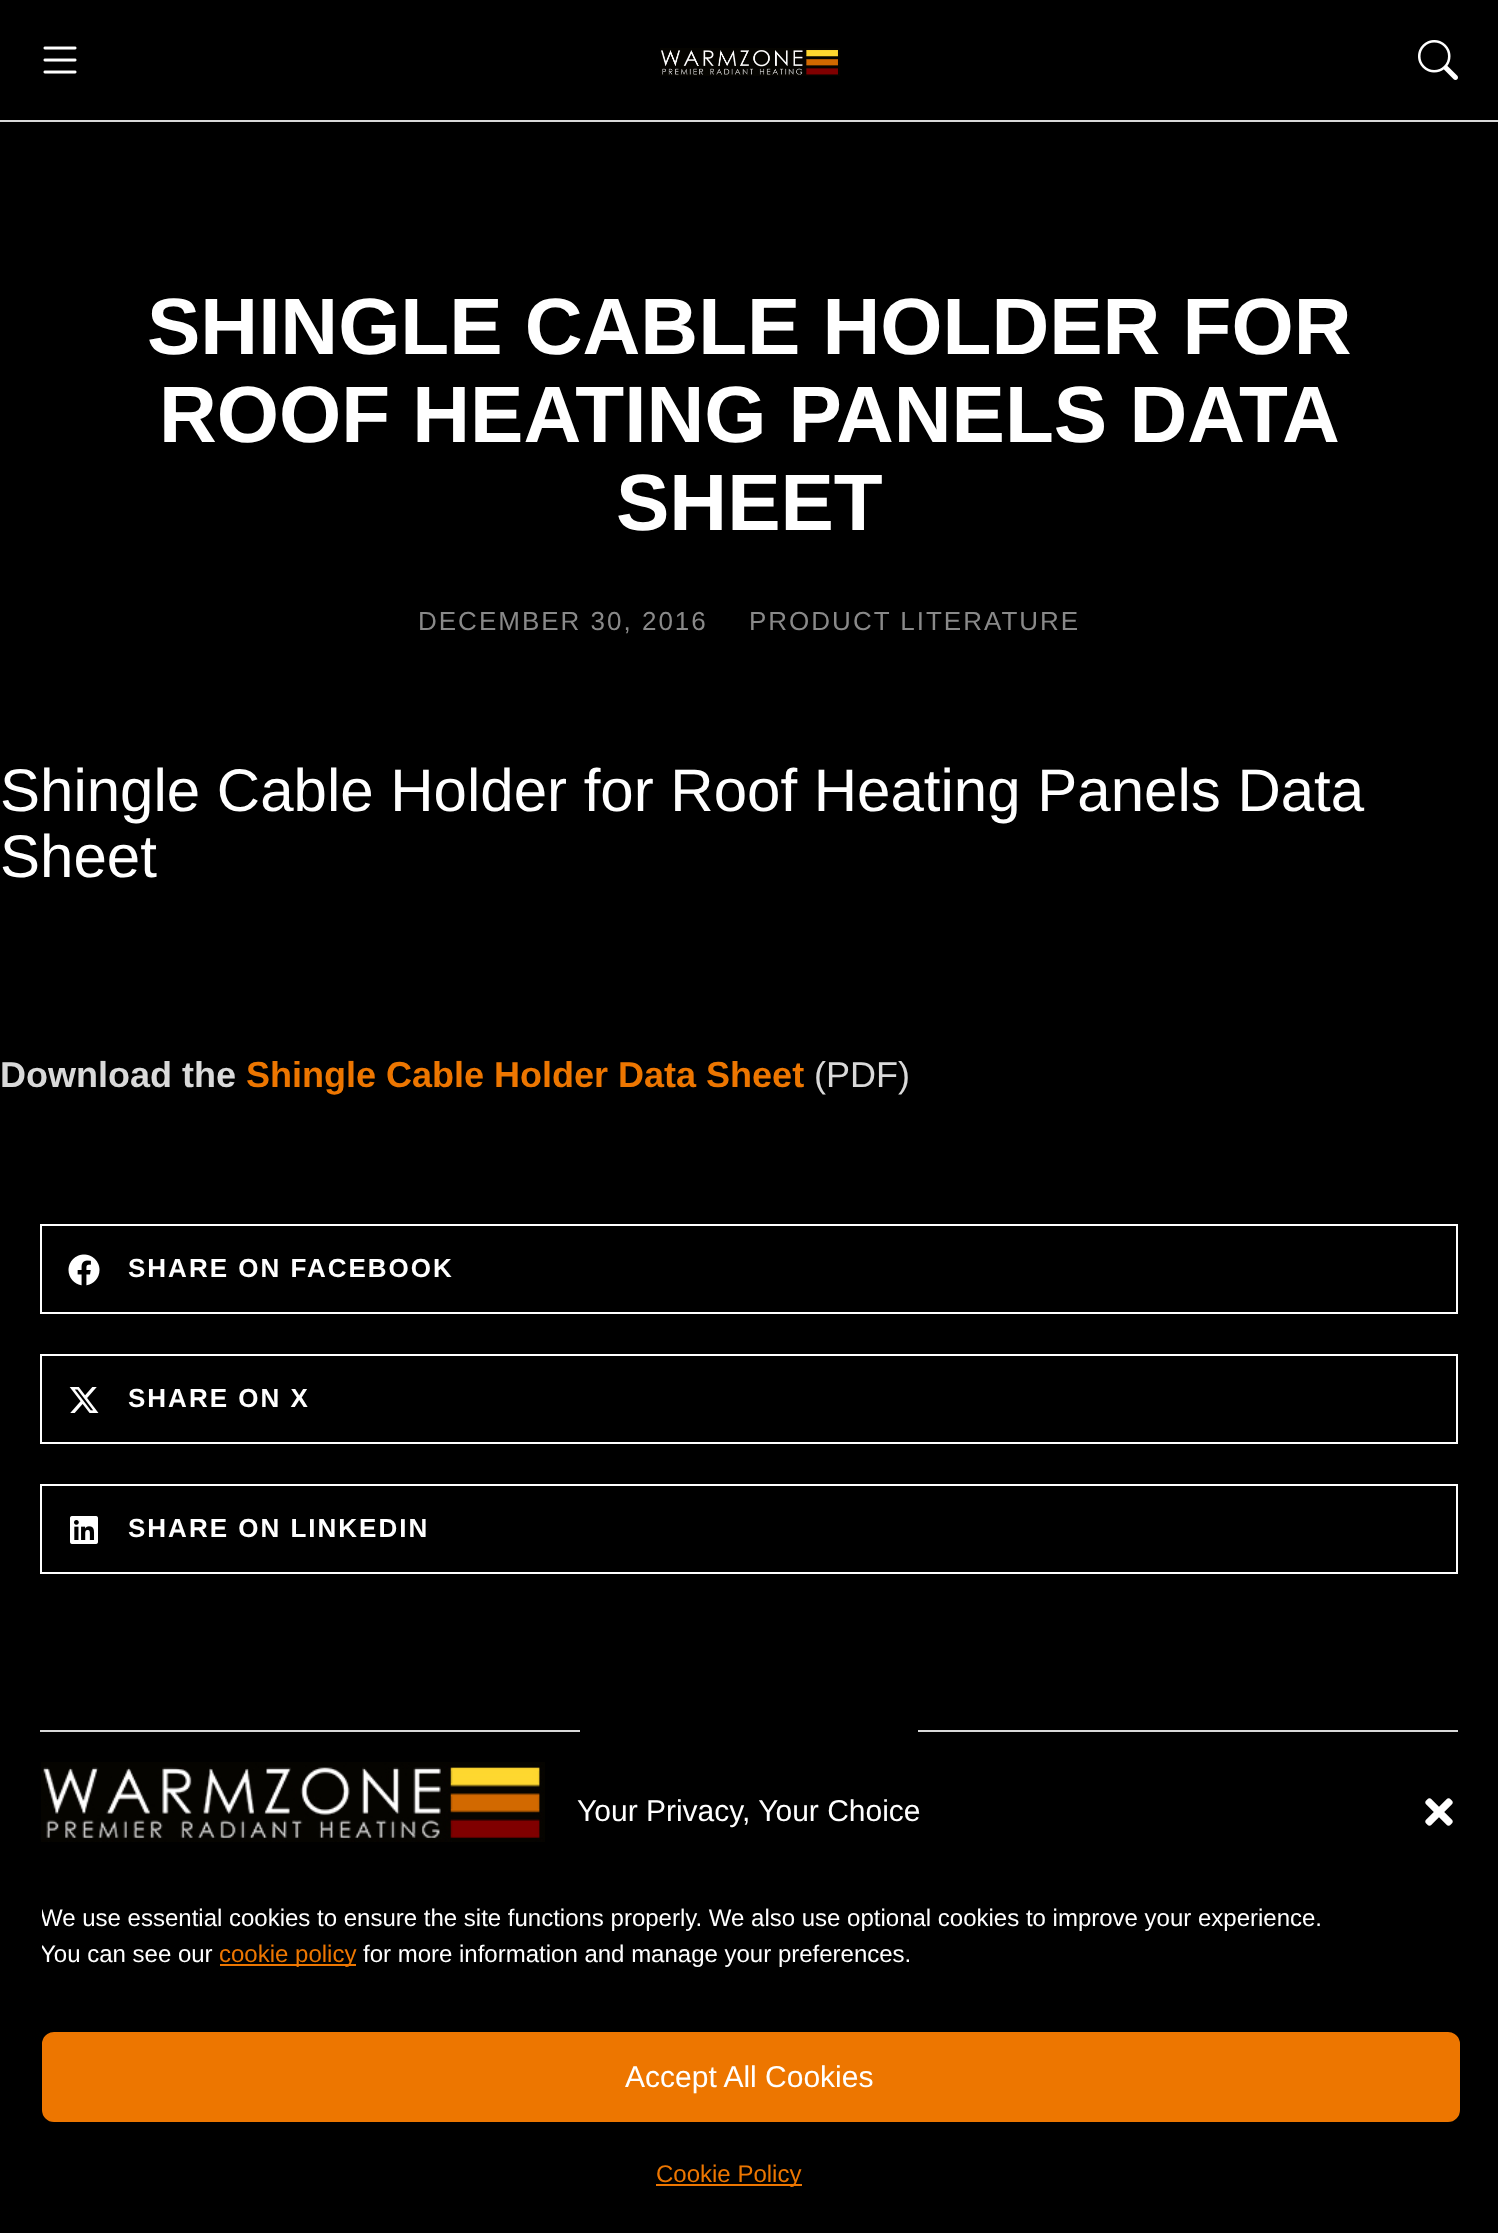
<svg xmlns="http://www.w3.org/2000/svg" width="1498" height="2233">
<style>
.a{font:bold 80px Liberation Sans;fill:#fff}
.b{font:26px Liberation Sans;letter-spacing:2px;fill:#898989}
.c{font:60px Liberation Sans;fill:#fff}
.d{font:bold 36px Liberation Sans;fill:#d9d9d9}
.e{font:bold 36px Liberation Sans;fill:#ed7600}
.f{font:36px Liberation Sans;fill:#d9d9d9}
.g{font:bold 26px Liberation Sans;letter-spacing:2px;fill:#fff}
.h{font:30px Liberation Sans;fill:#fff}
.i{font:24px Liberation Sans;fill:#fff}
.j{font:24px Liberation Sans;fill:#ed7600}
</style>
<defs>
<clipPath id="clip1"><path d="M42 1900h1418v92H42z"/></clipPath>
</defs>
<rect width="100%" height="100%" fill="#000"/>
<path fill="#d9d9d9" d="M0 120h1498v2H0z"/>
<image href="1.png" x="43" y="46" width="34" height="28"/>
<image href="2.png" x="660" y="48" width="180" height="28"/>
<image href="3.png" x="1418" y="40" width="40" height="40"/>
<path fill="none" stroke="#fff" stroke-width="2" d="M41 1225h1416v88H41z"/>
<image href="4.png" x="68" y="1254" width="32" height="32"/>
<path fill="none" stroke="#fff" stroke-width="2" d="M41 1355h1416v88H41z"/>
<image href="5.png" x="69" y="1387" width="30" height="26"/>
<path fill="none" stroke="#fff" stroke-width="2" d="M41 1485h1416v88H41z"/>
<image href="6.png" x="70" y="1516" width="28" height="28"/>
<path fill="#d9d9d9" d="M40 1730h540v2H40z"/>
<path fill="#d9d9d9" d="M918 1730h540v2H918z"/>
<image href="7.png" x="41" y="1762" width="504" height="80"/>
<image href="8.png" x="1425" y="1798" width="28" height="28"/>
<path fill="#ed7600" d="M220 1964h136v2H220z"/>
<rect fill="#ed7600" stroke="#ed7600" stroke-width="2" x="43" y="2033" width="1416" height="88" rx="11"/>
<path fill="#ed7600" d="M656 2184h146v2H656z"/>
<text class="a" x="147" y="354">SHINGLE CABLE HOLDER FOR</text>
<text class="a" x="159" y="442">ROOF HEATING PANELS DATA</text>
<text class="a" x="616" y="530">SHEET</text>
<text class="b" x="418" y="630">DECEMBER 30, 2016</text>
<text class="b" x="749" y="630">PRODUCT LITERATURE</text>
<text class="c" x="0" y="811">Shingle Cable Holder for Roof Heating Panels Data</text>
<text class="c" x="0" y="877">Sheet</text>
<text class="d" x="0" y="1087">Download the</text>
<text class="e" x="246" y="1087">Shingle Cable Holder Data Sheet</text>
<text class="f" x="814" y="1087">(PDF)</text>
<text class="g" x="128" y="1277">SHARE ON FACEBOOK</text>
<text class="g" x="128" y="1407">SHARE ON X</text>
<text class="g" x="128" y="1537">SHARE ON LINKEDIN</text>
<text class="h" x="577" y="1821">Your Privacy, Your Choice</text>
<g clip-path="url(#clip1)">
<text class="i" x="40" y="1926">We use essential cookies to ensure the site functions properly. We also use optional cookies to improve your experience.</text>
<text class="i" x="40" y="1962">You can see our</text>
</g>
<text class="j" x="219" y="1962">cookie policy</text>
<text class="i" x="363" y="1962">for more information and manage your preferences.</text>
<text class="h" x="625" y="2087">Accept All Cookies</text>
<text class="j" x="656" y="2182">Cookie Policy</text>
</svg>
